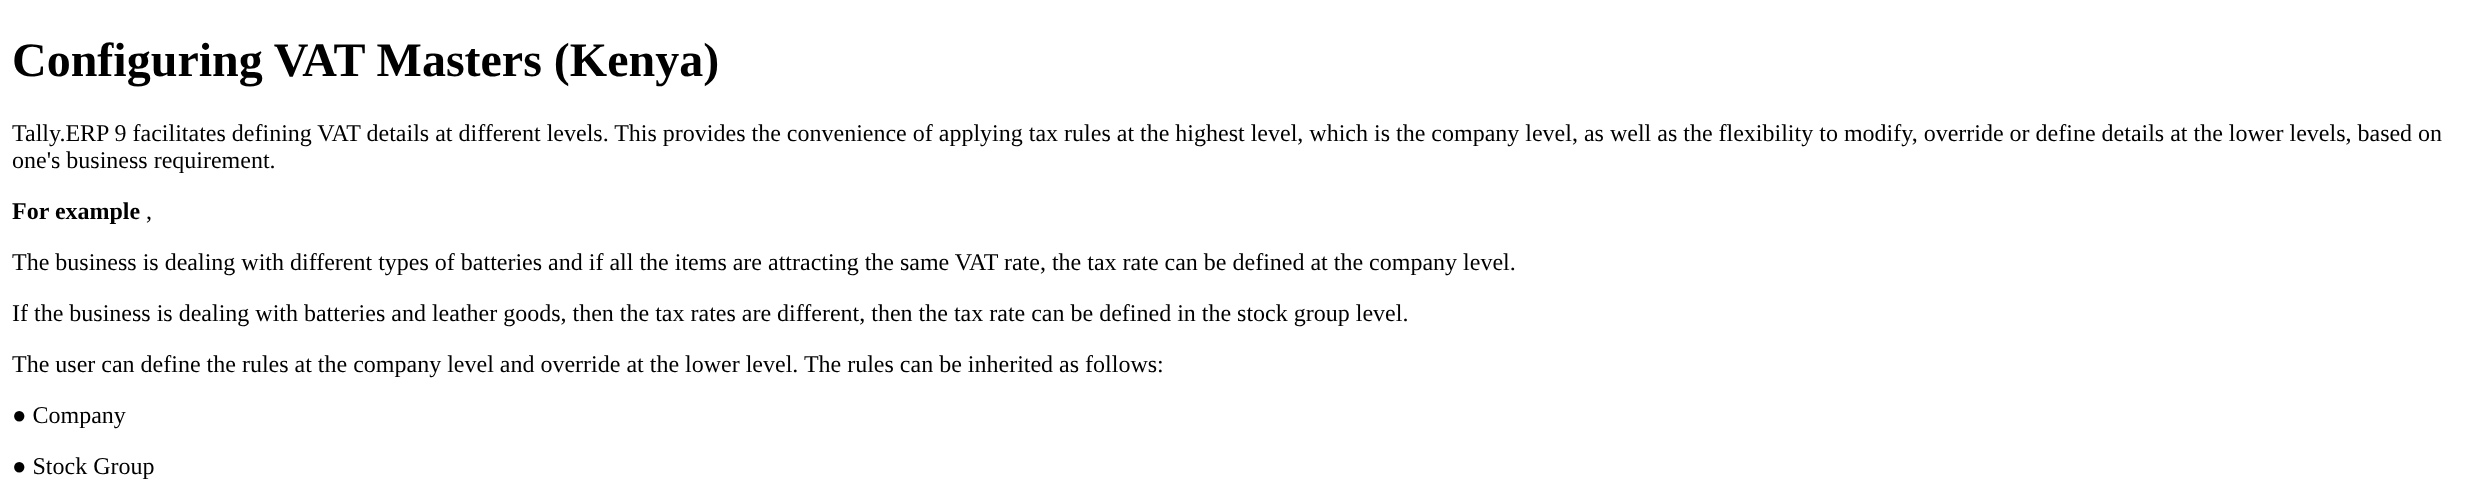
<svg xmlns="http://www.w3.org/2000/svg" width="2488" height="480">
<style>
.a{font:bold 48px Liberation Serif;fill:#000}
.b{font:24px Liberation Serif;fill:#000}
.c{font:bold 24px Liberation Serif;fill:#000}
</style>
<rect width="100%" height="100%" fill="#fff"/>
<text class="a" x="12" y="76">Configuring VAT Masters (Kenya)</text>
<text class="b" x="12" y="141">Tally.ERP 9 facilitates defining VAT details at different levels. This provides the convenience of applying tax rules at the highest level, which is the company level, as well as the flexibility to modify, override or define details at the lower levels, based on</text>
<text class="b" x="12" y="168">one's business requirement.</text>
<text class="c" x="12" y="219">For example</text>
<text class="b" x="146" y="219">,</text>
<text class="b" x="12" y="270">The business is dealing with different types of batteries and if all the items are attracting the same VAT rate, the tax rate can be defined at the company level.</text>
<text class="b" x="12" y="321">If the business is dealing with batteries and leather goods, then the tax rates are different, then the tax rate can be defined in the stock group level.</text>
<text class="b" x="12" y="372">The user can define the rules at the company level and override at the lower level. The rules can be inherited as follows:</text>
<text class="b" x="12" y="423">● Company</text>
<text class="b" x="12" y="474">● Stock Group</text>
</svg>
